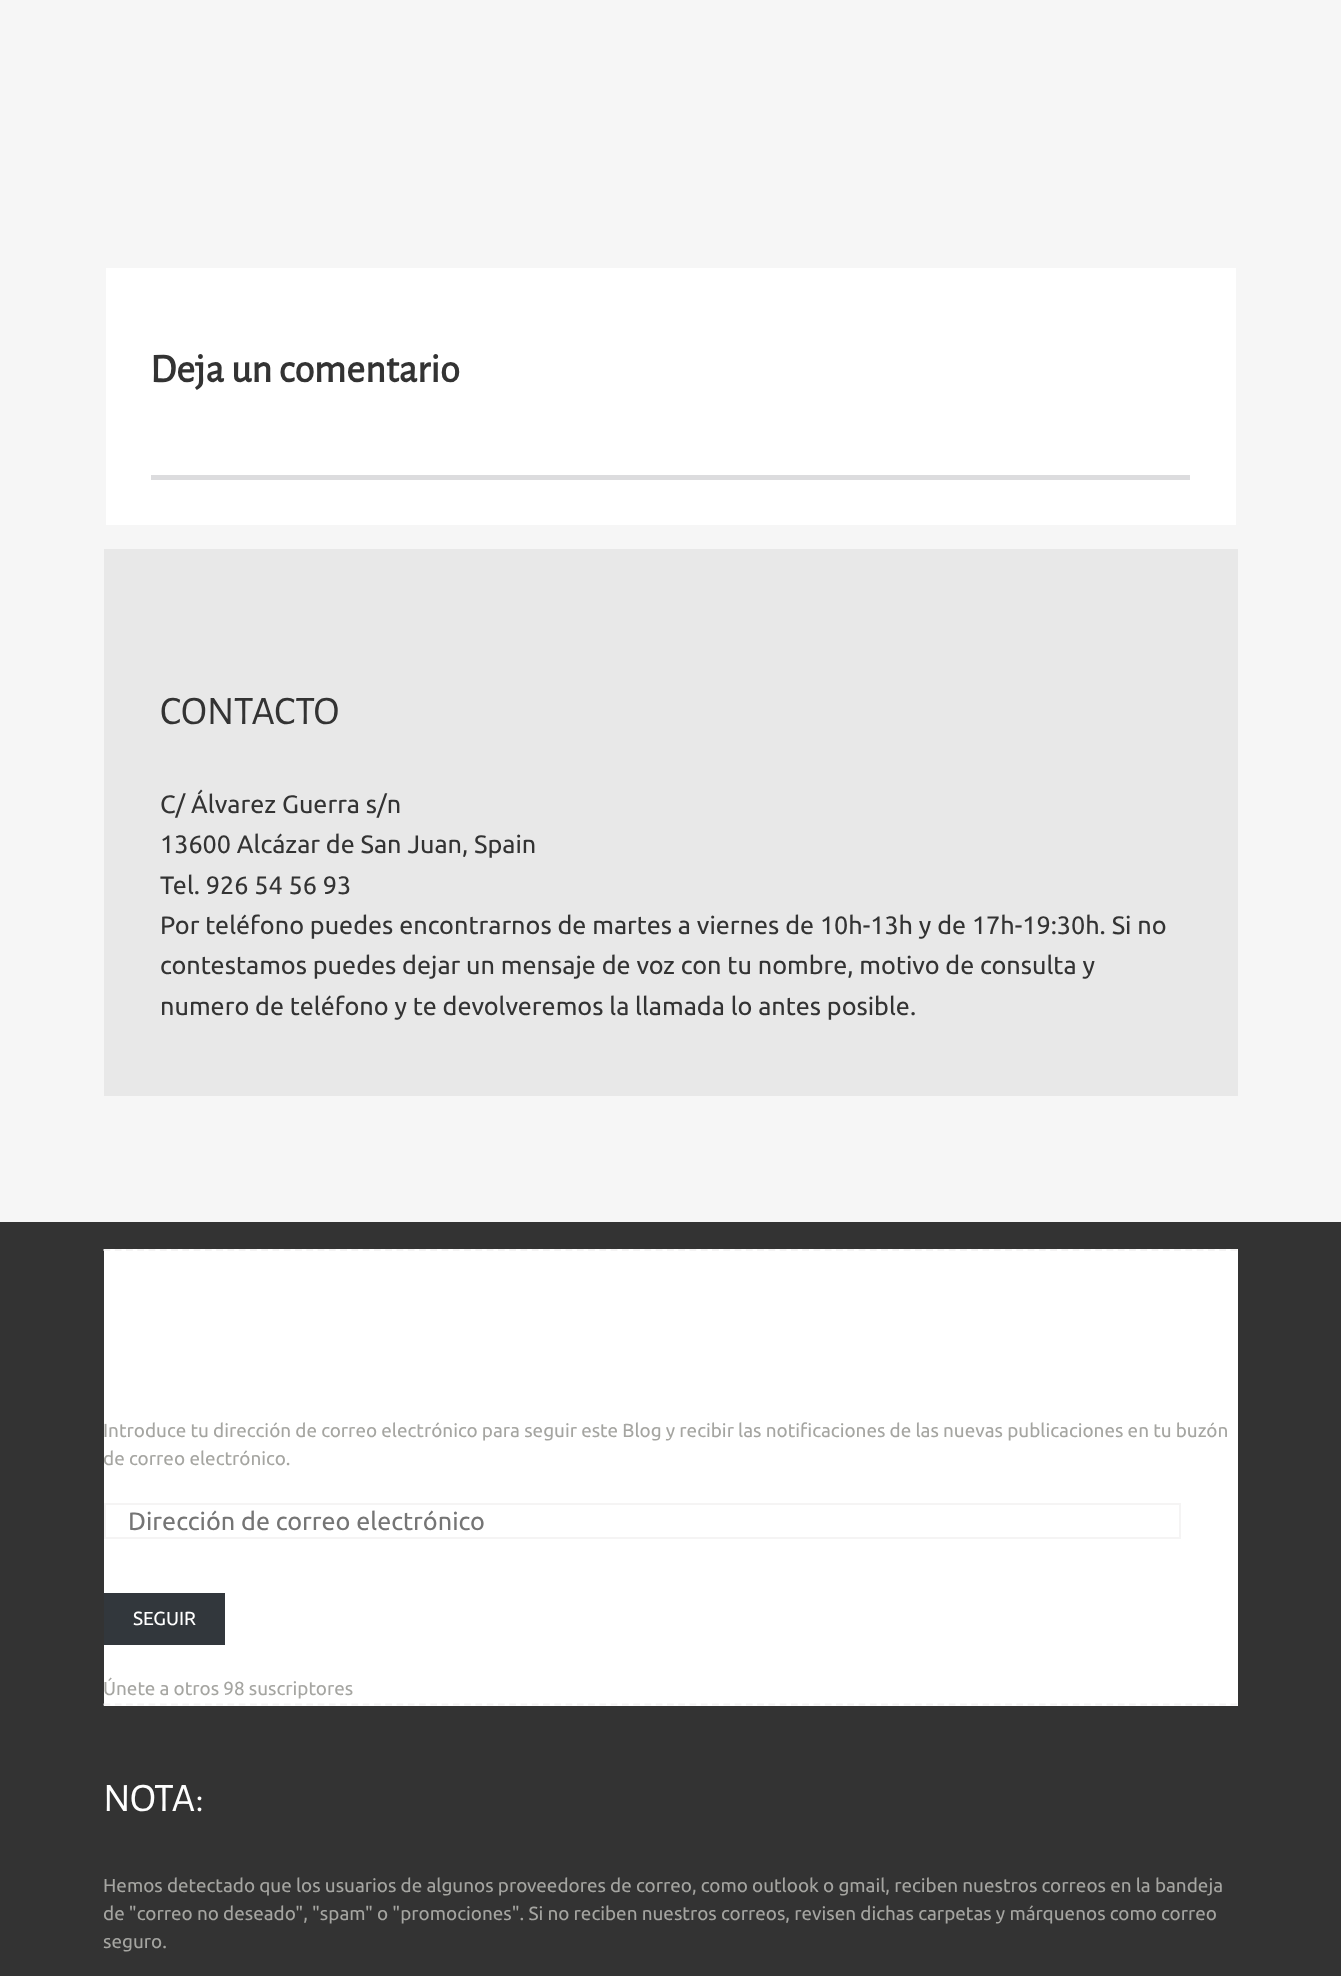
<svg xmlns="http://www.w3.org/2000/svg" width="1341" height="1976">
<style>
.a{font:bold 40.5px Alegreya Sans;fill:#333}
.b{font:40.5px Alegreya Sans;fill:#333}
.c{font:25.2px Ubuntu;fill:#333}
.d{font:18.9px Ubuntu;fill:#a5a5a1}
.e{font:25.2px Ubuntu;fill:#757575}
.f{font:18.9px Ubuntu;fill:#fff}
.g{font:40.5px Alegreya Sans;fill:#fff}
</style>
<rect width="100%" height="100%" fill="#f6f6f6"/>
<path fill="#fff" d="M106 268h1130v257H106z"/>
<path fill="#dcdcde" d="M151 475h1039v5H151z"/>
<path fill="#e8e8e8" d="M104 549h1134v547H104z"/>
<path fill="#333" d="M0 1222h1341v754H0z"/>
<path fill="#fff" d="M104 1249h1134v457H104z"/>
<path fill="none" stroke="#f5f4f4" stroke-width="2.2" stroke-dasharray="6.75 4.52" d="M103.5 1250h1134"/>
<path fill="none" stroke="#f5f4f4" stroke-width="2.2" stroke-dasharray="6.75 4.52" d="M103.5 1704.5h1134"/>
<path fill="none" stroke="#f5f4f4" stroke-width="2" d="M105 1504h1075v34H105z"/>
<path fill="#32373c" d="M104 1593h121v52H104z"/>
<text class="a" x="150" y="382">Deja un comentario</text>
<text class="b" x="160" y="724">CONTACTO</text>
<text class="c" x="160" y="813">C/ Álvarez Guerra s/n</text>
<text class="c" x="160" y="853">13600 Alcázar de San Juan, Spain</text>
<text class="c" x="160" y="894">Tel. 926 54 56 93</text>
<text class="c" x="160" y="934">Por teléfono puedes encontrarnos de martes a viernes de 10h-13h y de 17h-19:30h. Si no</text>
<text class="c" x="160" y="974">contestamos puedes dejar un mensaje de voz con tu nombre, motivo de consulta y</text>
<text class="c" x="160" y="1015">numero de teléfono y te devolveremos la llamada lo antes posible.</text>
<text class="d" x="103" y="1437" word-spacing="-0.2">Introduce tu dirección de correo electrónico para seguir este Blog y recibir las notificaciones de las nuevas publicaciones en tu buzón</text>
<text class="d" x="103" y="1465">de correo electrónico.</text>
<text class="e" x="128" y="1530">Dirección de correo electrónico</text>
<text class="f" x="133" y="1625">SEGUIR</text>
<text class="d" x="103" y="1695" word-spacing="-0.2">Únete a otros 98 suscriptores</text>
<text class="g" x="103" y="1811">NOTA:</text>
<text class="d" x="103" y="1892" word-spacing="-0.2">Hemos detectado que los usuarios de algunos proveedores de correo, como outlook o gmail, reciben nuestros correos en la bandeja</text>
<text class="d" x="103" y="1920" word-spacing="-0.2">de "correo no deseado", "spam" o "promociones". Si no reciben nuestros correos, revisen dichas carpetas y márquenos como correo</text>
<text class="d" x="103" y="1948">seguro.</text>
</svg>
